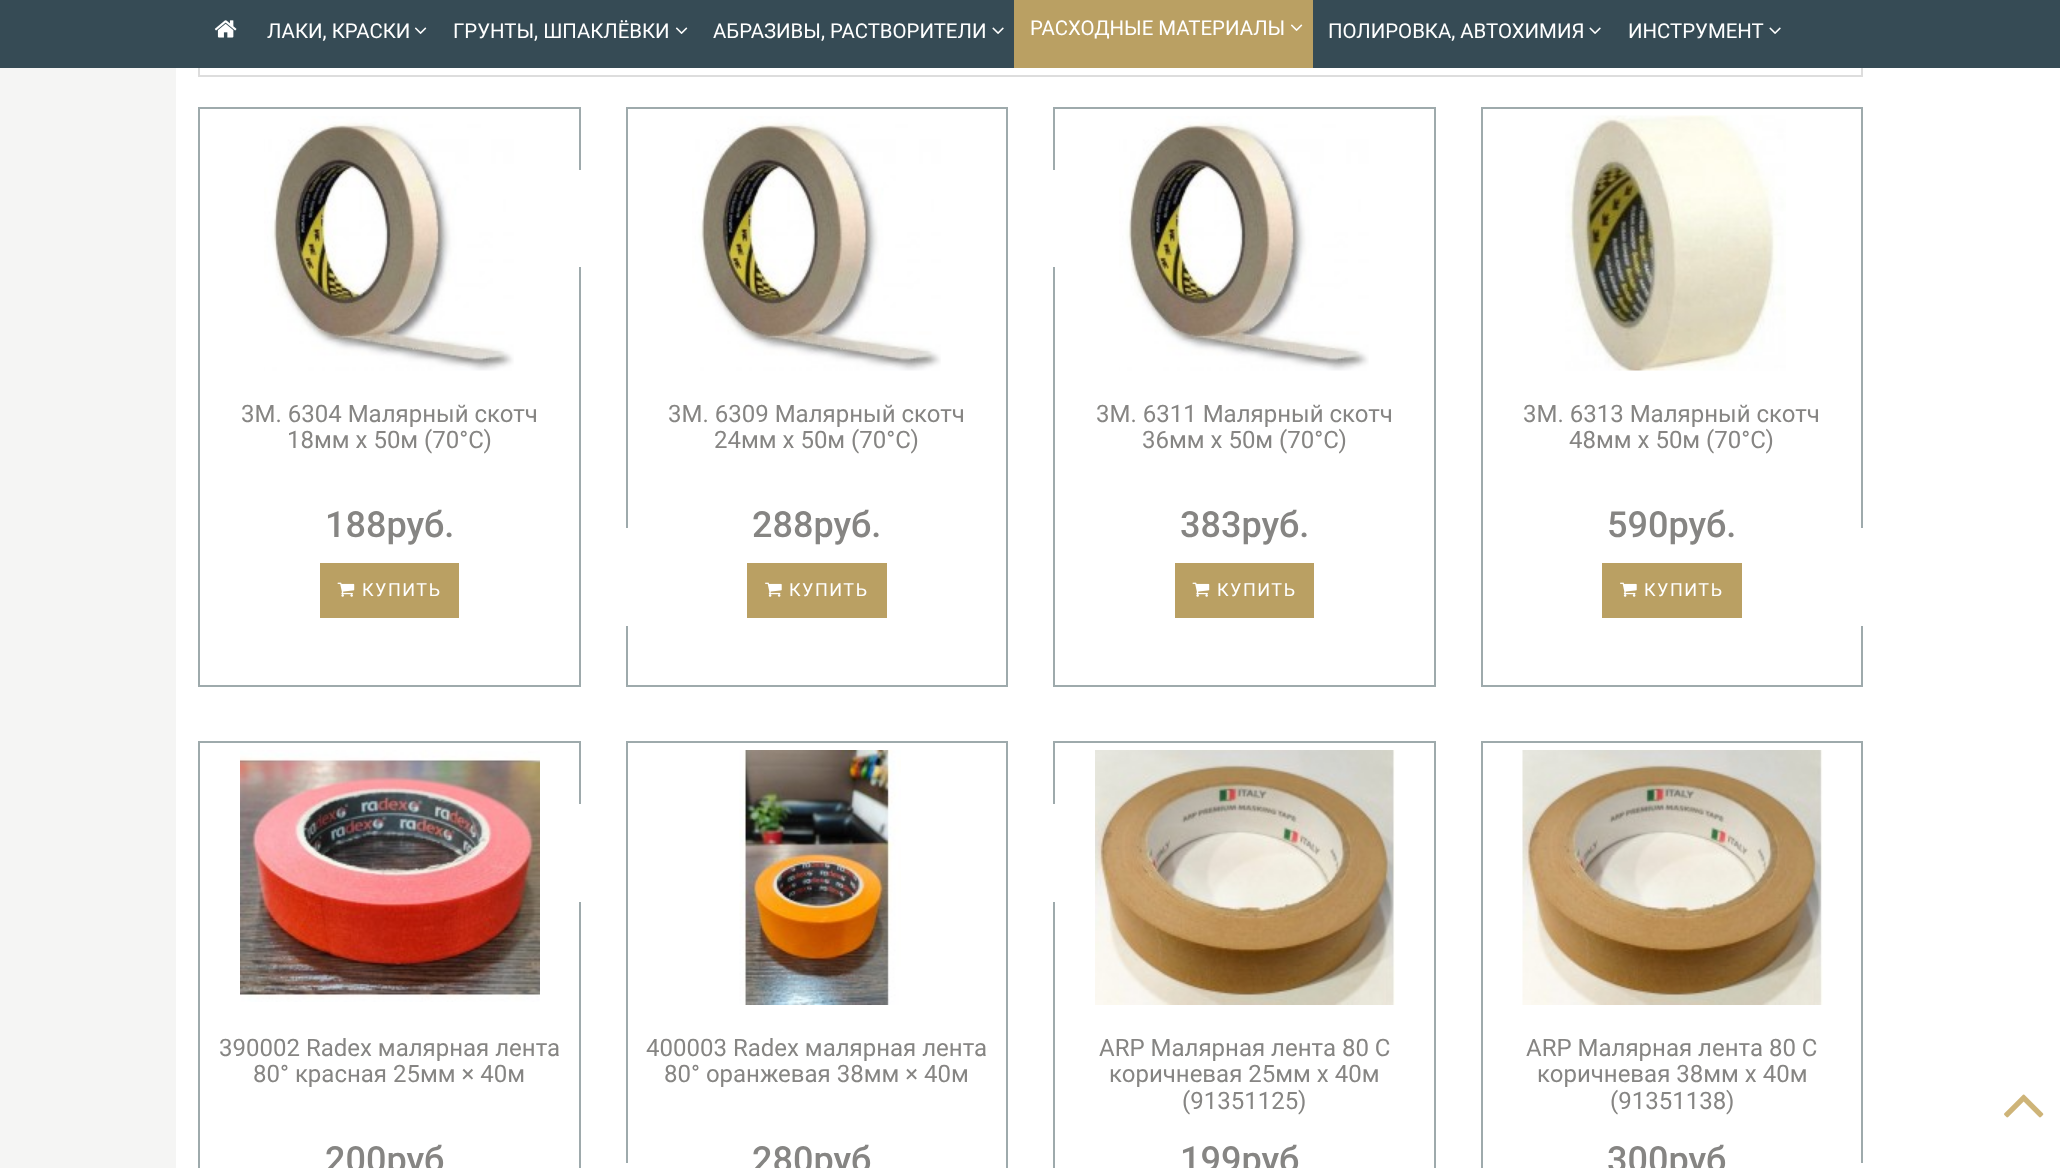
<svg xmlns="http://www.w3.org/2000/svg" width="2060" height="1168">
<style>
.a{font:20.4px Roboto;fill:#fff}
.b{font:24px Roboto;fill:#868583}
.c{font:500 36px Roboto;fill:#868583}
.d{font:18px Roboto;letter-spacing:1.5px;fill:#fff}
</style>
<rect width="100%" height="100%" fill="#fff"/>
<path fill="none" stroke="#ddd" stroke-width="2" d="M199 7h1663v69H199z"/>
<path fill="#364b55" d="M0 0h2060v68H0z"/>
<image href="1.png" x="214" y="20" width="23" height="18"/>
<image href="2.png" x="414" y="27" width="13" height="7"/>
<image href="2.png" x="675" y="27" width="13" height="7"/>
<image href="3.png" x="992" y="27" width="12" height="7"/>
<path fill="#baa063" d="M1014 0h299v68H1014z"/>
<image href="4.png" x="1290" y="24" width="13" height="7"/>
<image href="3.png" x="1589" y="27" width="12" height="7"/>
<image href="3.png" x="1769" y="27" width="12" height="7"/>
<path fill="#f5f5f4" d="M0 68h176v1100H0z"/>
<path fill="none" stroke="#9eaaac" stroke-width="2" d="M199 108h381v578H199z"/>
<path fill="#fff" d="M579 170h2v97H579z"/>
<image href="5.png" x="264" y="116" width="250" height="255"/>
<path fill="#baa063" d="M320 563h139v55H320z"/>
<image href="6.png" x="337" y="582" width="18" height="15"/>
<path fill="none" stroke="#9eaaac" stroke-width="2" d="M627 108h380v578H627z"/>
<path fill="#fff" d="M626 528h2v98H626z"/>
<image href="7.png" x="692" y="116" width="249" height="255"/>
<path fill="#baa063" d="M747 563h140v55H747z"/>
<image href="8.png" x="765" y="582" width="17" height="15"/>
<path fill="none" stroke="#9eaaac" stroke-width="2" d="M1054 108h381v578H1054z"/>
<path fill="#fff" d="M1053 170h2v97H1053z"/>
<image href="9.png" x="1119" y="116" width="250" height="255"/>
<path fill="#baa063" d="M1175 563h139v55H1175z"/>
<image href="6.png" x="1192" y="582" width="18" height="15"/>
<path fill="none" stroke="#9eaaac" stroke-width="2" d="M1482 108h380v578H1482z"/>
<image href="10.png" x="1565" y="115" width="221" height="256"/>
<path fill="#baa063" d="M1602 563h140v55H1602z"/>
<image href="8.png" x="1620" y="582" width="17" height="15"/>
<path fill="#fff" d="M1861 528h2v98H1861z"/>
<path fill="none" stroke="#9eaaac" stroke-width="2" d="M199 742h381v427H199z"/>
<path fill="#fff" d="M579 804h2v98H579z"/>
<image href="11.png" x="240" y="750" width="300" height="252"/>
<path fill="none" stroke="#9eaaac" stroke-width="2" d="M627 742h380v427H627z"/>
<path fill="#fff" d="M626 1163h2v5H626z"/>
<image href="12.png" x="739" y="750" width="162" height="255"/>
<path fill="none" stroke="#9eaaac" stroke-width="2" d="M1054 742h381v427H1054z"/>
<path fill="#fff" d="M1053 804h2v98H1053z"/>
<image href="13.png" x="1095" y="750" width="300" height="255"/>
<path fill="none" stroke="#9eaaac" stroke-width="2" d="M1482 742h380v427H1482z"/>
<image href="14.png" x="1522" y="750" width="301" height="255"/>
<path fill="#fff" d="M1861 1163h2v5H1861z"/>
<image href="15.png" x="2004" y="1094" width="40" height="24"/>
<text class="a" x="267" y="38">ЛАКИ, КРАСКИ</text>
<text class="a" x="453" y="38">ГРУНТЫ, ШПАКЛЁВКИ</text>
<text class="a" x="713" y="38">АБРАЗИВЫ, РАСТВОРИТЕЛИ</text>
<text class="a" x="1030" y="35">РАСХОДНЫЕ МАТЕРИАЛЫ</text>
<text class="a" x="1328" y="38">ПОЛИРОВКА, АВТОХИМИЯ</text>
<text class="a" x="1628" y="38">ИНСТРУМЕНТ</text>
<text class="b" x="241" y="422">3М. 6304 Малярный скотч</text>
<text class="b" x="287" y="448">18мм х 50м (70°С)</text>
<text class="c" x="325" y="537">188руб.</text>
<text class="d" x="362" y="596">КУПИТЬ</text>
<text class="b" x="668" y="422">3М. 6309 Малярный скотч</text>
<text class="b" x="714" y="448">24мм х 50м (70°С)</text>
<text class="c" x="752" y="537">288руб.</text>
<text class="d" x="789" y="596">КУПИТЬ</text>
<text class="b" x="1096" y="422">3М. 6311 Малярный скотч</text>
<text class="b" x="1142" y="448">36мм х 50м (70°С)</text>
<text class="c" x="1180" y="537">383руб.</text>
<text class="d" x="1217" y="596">КУПИТЬ</text>
<text class="b" x="1523" y="422">3М. 6313 Малярный скотч</text>
<text class="b" x="1569" y="448">48мм х 50м (70°С)</text>
<text class="c" x="1607" y="537">590руб.</text>
<text class="d" x="1644" y="596">КУПИТЬ</text>
<text class="b" x="219" y="1056">390002 Radex малярная лента</text>
<text class="b" x="253" y="1082">80° красная 25мм × 40м</text>
<text class="c" x="325" y="1172">200руб</text>
<text class="b" x="646" y="1056">400003 Radex малярная лента</text>
<text class="b" x="664" y="1082">80° оранжевая 38мм × 40м</text>
<text class="c" x="752" y="1172">280руб</text>
<text class="b" x="1099" y="1056">ARP Малярная лента 80 С</text>
<text class="b" x="1109" y="1082">коричневая 25мм х 40м</text>
<text class="b" x="1182" y="1109">(91351125)</text>
<text class="c" x="1180" y="1172">199руб</text>
<text class="b" x="1526" y="1056">ARP Малярная лента 80 С</text>
<text class="b" x="1537" y="1082">коричневая 38мм х 40м</text>
<text class="b" x="1610" y="1109">(91351138)</text>
<text class="c" x="1607" y="1172">300руб</text>
</svg>
